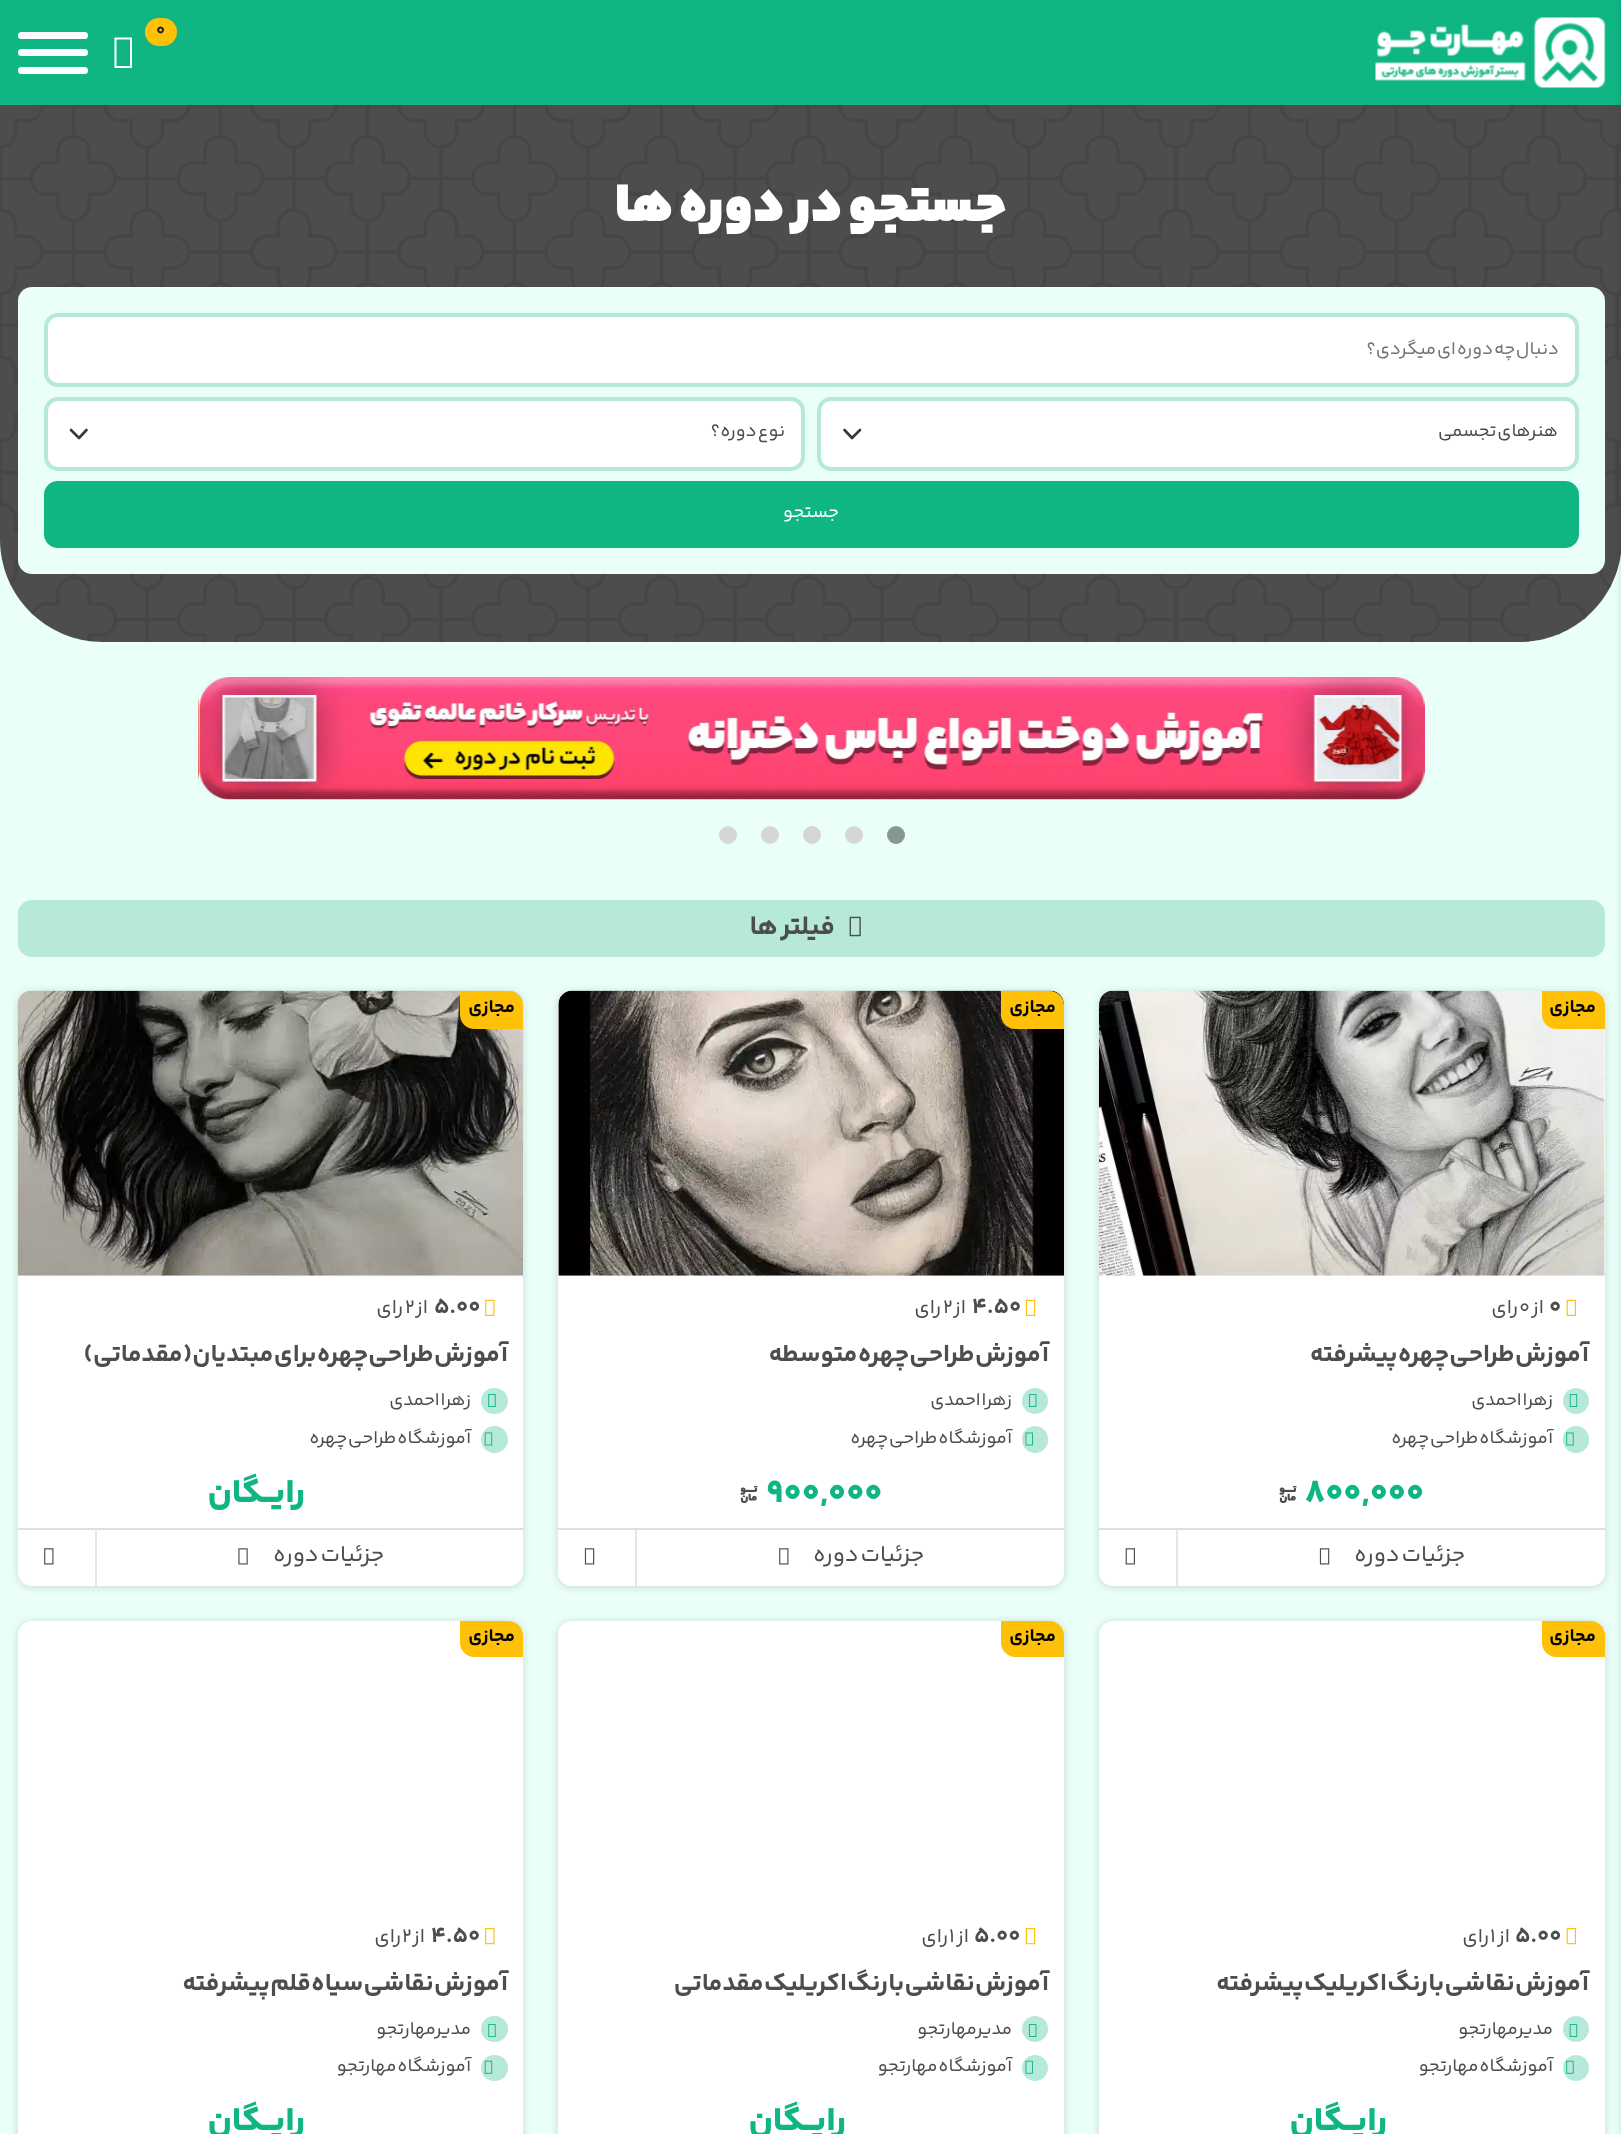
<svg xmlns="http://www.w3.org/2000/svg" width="1621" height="2134">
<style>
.a{font:bold 17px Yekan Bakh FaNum;fill:#212529}
.b{font:800 57px Yekan Bakh FaNum;direction:rtl;fill:#fff}
.c{font:18.25px Yekan Bakh FaNum;direction:rtl;fill:#6c757d}
.d{font:18.25px Yekan Bakh FaNum;direction:rtl;fill:#4d4d4d}
.e{font:18.25px Yekan Bakh FaNum;direction:rtl;fill:#fff}
.f{font:bold 27px Yekan Bakh FaNum;direction:rtl;fill:#4d4d4d}
.g{font:bold 18.25px Yekan Bakh FaNum;direction:rtl;fill:#000}
.h{font:bold 22.75px Yekan Bakh FaNum;fill:#4d4d4d}
.i{font:20px Yekan Bakh FaNum;direction:rtl;fill:#4d4d4d}
.j{font:20px Yekan Bakh FaNum;fill:#4d4d4d}
.k{font:bold 25px Yekan Bakh FaNum;direction:rtl;fill:#4d4d4d}
.l{font:800 34px 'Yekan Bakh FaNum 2';letter-spacing:-1.75px;fill:#0fb583}
.m{font:22.75px Yekan Bakh FaNum;direction:rtl;fill:#4d4d4d}
.n{font:800 34px 'Yekan Bakh FaNum 2';letter-spacing:-1.75px;direction:rtl;fill:#0fb583}
</style>
<rect width="100%" height="100%" fill="#e9fff8"/>
<path fill="#0fb583" d="M0 0h1621v105H0z"/>
<path fill="#4d4d4d" d="M0 105h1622v434c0 57-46 103-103 103h-1416c-57 0-103-46-103-103z"/>
<image href="2.png" x="0" y="105" width="1621" height="537"/>
<path fill="#00000026" filter="blur(4.5px)" d="M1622 2h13v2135H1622z"/>
<image href="1.png" x="1375" y="17" width="231" height="71"/>
<rect fill="#ffc107" x="145" y="18" width="32" height="28" rx="14"/>
<path fill="#fff" d="M114.5 68v-30.5h17.5v30.5zm2-2h13.5v-26.5h-13.5z"/>
<rect fill="#fff" x="18" y="49" width="70" height="7" rx="3.5"/>
<rect fill="#fff" x="18" y="32" width="70" height="7" rx="3.5"/>
<rect fill="#fff" x="18" y="67" width="70" height="7" rx="3.5"/>
<rect fill="#e9fff8" x="18" y="287" width="1587" height="287" rx="14"/>
<rect fill="#fff" stroke="#b6e9da" stroke-width="4" x="46" y="315" width="1531" height="70" rx="12"/>
<rect fill="#fff" x="817" y="397" width="762" height="74" rx="14"/>
<path fill="none" stroke="#343a40" stroke-width="2.6" stroke-linecap="round" stroke-linejoin="round" d="M844.5 430l7.5 8l8-8"/>
<rect fill="none" stroke="#b6e9da" stroke-width="4" x="819" y="399" width="758" height="70" rx="12"/>
<rect fill="#fff" x="44" y="397" width="761" height="74" rx="14"/>
<path fill="none" stroke="#343a40" stroke-width="2.6" stroke-linecap="round" stroke-linejoin="round" d="M71 430l8 8l7.5-8"/>
<rect fill="none" stroke="#b6e9da" stroke-width="4" x="46" y="399" width="757" height="70" rx="12"/>
<rect fill="#0fb583" x="44" y="481" width="1535" height="67" rx="14"/>
<image href="3.png" x="200" y="677" width="1225" height="123"/>
<image href="4.png" x="198" y="697" width="2" height="83"/>
<circle fill="#869791" cx="896" cy="835" r="9"/>
<circle fill="#d6d6d6" cx="854" cy="835" r="9"/>
<circle fill="#d6d6d6" cx="812" cy="835" r="9"/>
<circle fill="#d6d6d6" cx="770" cy="835" r="9"/>
<circle fill="#d6d6d6" cx="728" cy="835" r="9"/>
<rect fill="#b6e9da" x="18" y="900" width="1587" height="57" rx="14"/>
<image href="5.png" x="849" y="916" width="12" height="21"/>
<rect fill="#00000026" filter="blur(4.5px)" x="1099" y="992" width="506" height="595" rx="14"/>
<rect fill="#fff" x="1099" y="991" width="506" height="595" rx="14"/>
<image href="6.png" x="1099" y="990" width="506" height="286"/>
<path fill="#ffc107" d="M1542 991h49c7.5 0 14 6.5 14 14v24h-49c-7.5 0-14-6.5-14-14z"/>
<image href="7.png" x="1566" y="1299" width="10" height="17"/>
<circle fill="#b6e9da" cx="1576" cy="1401" r="13"/>
<image href="8.png" x="1569" y="1394" width="9" height="13"/>
<rect fill="#b6e9da" x="1563" y="1426" width="26" height="27" rx="13"/>
<image href="9.png" x="1566" y="1432" width="8" height="14"/>
<image href="10.png" x="1279" y="1486" width="18" height="17"/>
<path fill="#fff" d="M1099 1528h506v44c0 7.5-6.5 14-14 14h-478c-7.5 0-14-6.5-14-14z"/>
<path fill="#dfdfdf" d="M1099 1528h506v2H1099z"/>
<image href="11.png" x="1319" y="1548" width="11" height="17"/>
<path fill="#e6e6e6" d="M1176 1530h2v56H1176z"/>
<image href="12.png" x="1125" y="1548" width="10" height="17"/>
<rect fill="#00000026" filter="blur(4.5px)" x="558" y="992" width="506" height="595" rx="14"/>
<rect fill="#fff" x="558" y="991" width="506" height="595" rx="14"/>
<image href="13.png" x="558" y="990" width="506" height="286"/>
<path fill="#ffc107" d="M1001 991h49c7.5 0 14 6.5 14 14v24h-49c-7.5 0-14-6.5-14-14z"/>
<image href="14.png" x="1025" y="1299" width="11" height="17"/>
<circle fill="#b6e9da" cx="1035" cy="1401" r="13"/>
<image href="15.png" x="1028" y="1394" width="9" height="13"/>
<rect fill="#b6e9da" x="1022" y="1426" width="26" height="27" rx="13"/>
<image href="16.png" x="1025" y="1432" width="8" height="14"/>
<image href="10.png" x="740" y="1486" width="18" height="17"/>
<path fill="#fff" d="M558 1528h506v44c0 7.5-6.5 14-14 14h-478c-7.5 0-14-6.5-14-14z"/>
<path fill="#dfdfdf" d="M558 1528h506v2H558z"/>
<image href="17.png" x="779" y="1548" width="10" height="17"/>
<path fill="#e6e6e6" d="M635 1530h2v56H635z"/>
<image href="11.png" x="584" y="1548" width="11" height="17"/>
<rect fill="#00000026" filter="blur(4.5px)" x="18" y="992" width="505" height="595" rx="14"/>
<rect fill="#fff" x="18" y="991" width="505" height="595" rx="14"/>
<image href="18.png" x="17" y="990" width="506" height="286"/>
<path fill="#ffc107" d="M460 991h49c7.5 0 14 6.5 14 14v24h-49c-7.5 0-14-6.5-14-14z"/>
<image href="19.png" x="485" y="1299" width="10" height="17"/>
<rect fill="#b6e9da" x="481" y="1388" width="27" height="26" rx="13"/>
<image href="20.png" x="488" y="1394" width="8" height="13"/>
<circle fill="#b6e9da" cx="494.5" cy="1439.5" r="13.5"/>
<image href="21.png" x="484" y="1432" width="9" height="14"/>
<path fill="#fff" d="M18 1528h505v44c0 7.5-6.5 14-14 14h-477c-7.5 0-14-6.5-14-14z"/>
<path fill="#dfdfdf" d="M18 1528h505v2H18z"/>
<image href="22.png" x="238" y="1548" width="10" height="17"/>
<path fill="#e6e6e6" d="M95 1530h2v56H95z"/>
<image href="17.png" x="44" y="1548" width="10" height="17"/>
<rect fill="#00000026" filter="blur(4.5px)" x="1099" y="1622" width="506" height="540" rx="14"/>
<rect fill="#fff" x="1099" y="1621" width="506" height="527" rx="14"/>
<path fill="#ffc107" d="M1542 1621h49c7.5 0 14 6.5 14 14v22h-49c-7.5 0-14-6.5-14-14z"/>
<image href="23.png" x="1566" y="1928" width="10" height="17"/>
<circle fill="#b6e9da" cx="1576" cy="2029" r="13"/>
<image href="8.png" x="1569" y="2024" width="9" height="13"/>
<circle fill="#b6e9da" cx="1576" cy="2068" r="13"/>
<image href="24.png" x="1566" y="2060" width="8" height="14"/>
<rect fill="#00000026" filter="blur(4.5px)" x="558" y="1622" width="506" height="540" rx="14"/>
<rect fill="#fff" x="558" y="1621" width="506" height="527" rx="14"/>
<path fill="#ffc107" d="M1001 1621h49c7.5 0 14 6.5 14 14v22h-49c-7.5 0-14-6.5-14-14z"/>
<image href="25.png" x="1025" y="1928" width="11" height="17"/>
<circle fill="#b6e9da" cx="1035" cy="2029" r="13"/>
<image href="15.png" x="1028" y="2024" width="9" height="13"/>
<circle fill="#b6e9da" cx="1035" cy="2068" r="13"/>
<image href="26.png" x="1025" y="2060" width="8" height="14"/>
<rect fill="#00000026" filter="blur(4.5px)" x="18" y="1622" width="505" height="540" rx="14"/>
<rect fill="#fff" x="18" y="1621" width="505" height="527" rx="14"/>
<path fill="#ffc107" d="M460 1621h49c7.5 0 14 6.5 14 14v22h-49c-7.5 0-14-6.5-14-14z"/>
<image href="27.png" x="485" y="1928" width="10" height="17"/>
<rect fill="#b6e9da" x="481" y="2016" width="27" height="26" rx="13"/>
<image href="20.png" x="488" y="2024" width="8" height="13"/>
<rect fill="#b6e9da" x="481" y="2055" width="27" height="26" rx="13"/>
<image href="28.png" x="484" y="2060" width="9" height="14"/>
<text class="a" x="156" y="35">0</text>
<text class="b" x="1007" y="221" word-spacing="-3.5">جستجو در دوره ها</text>
<text class="c" x="1559" y="354" word-spacing="-3.5">دنبال چه دوره ای میگردی؟</text>
<text class="d" x="1558" y="436" word-spacing="-3.5">هنرهای تجسمی</text>
<text class="d" x="785" y="436" word-spacing="-3.5">نوع دوره؟</text>
<text class="e" x="839" y="517">جستجو</text>
<text class="f" x="835" y="934" word-spacing="-3.5">فیلتر ها</text>
<text class="g" x="1596" y="1012">مجازی</text>
<text class="h" x="1549" y="1313">0</text>
<text class="i" x="1544" y="1313">از</text>
<text class="j" x="1519" y="1313">0</text>
<text class="i" x="1518" y="1313">رای</text>
<text class="k" x="1589" y="1361" word-spacing="-5.25">آموزش طراحی چهره پیشرفته</text>
<text class="d" x="1553" y="1405" word-spacing="-3.5">زهرا احمدی</text>
<text class="d" x="1553" y="1443" word-spacing="-3.5">آموزشگاه طراحی چهره</text>
<text class="l" x="1305" y="1502">۸۰۰,۰۰۰</text>
<text class="m" x="1465" y="1561" word-spacing="-3.5">جزئیات دوره</text>
<text class="g" x="1056" y="1012">مجازی</text>
<text class="h" x="972" y="1313">4.50</text>
<text class="i" x="966" y="1313">از</text>
<text class="j" x="943" y="1313">2</text>
<text class="i" x="941" y="1313">رای</text>
<text class="k" x="1049" y="1361" word-spacing="-5.25">آموزش طراحی چهره متوسطه</text>
<text class="d" x="1012" y="1405" word-spacing="-3.5">زهرا احمدی</text>
<text class="d" x="1012" y="1443" word-spacing="-3.5">آموزشگاه طراحی چهره</text>
<text class="l" x="766" y="1502">۹۰۰,۰۰۰</text>
<text class="m" x="924" y="1561" word-spacing="-3.5">جزئیات دوره</text>
<text class="g" x="515" y="1012">مجازی</text>
<text class="h" x="434" y="1313">5.00</text>
<text class="i" x="428" y="1313">از</text>
<text class="j" x="405" y="1313">2</text>
<text class="i" x="403" y="1313">رای</text>
<text class="k" x="508" y="1361" word-spacing="-5.25">آموزش طراحی چهره برای مبتدیان (مقدماتی)</text>
<text class="d" x="471" y="1405" word-spacing="-3.5">زهرا احمدی</text>
<text class="d" x="471" y="1443" word-spacing="-3.5">آموزشگاه طراحی چهره</text>
<text class="n" x="305" y="1502">رایــگان</text>
<text class="m" x="384" y="1561" word-spacing="-3.5">جزئیات دوره</text>
<text class="g" x="1596" y="1641">مجازی</text>
<text class="h" x="1515" y="1942">5.00</text>
<text class="i" x="1510" y="1942">از</text>
<text class="j" x="1490" y="1942">1</text>
<text class="i" x="1489" y="1942">رای</text>
<text class="k" x="1589" y="1990" word-spacing="-5.25">آموزش نقاشی با رنگ اکریلیک پیشرفته</text>
<text class="d" x="1553" y="2034">مدیرمهارتجو</text>
<text class="d" x="1553" y="2071" word-spacing="-3.5">آموزشگاه مهارتجو</text>
<text class="n" x="1387" y="2130">رایــگان</text>
<text class="g" x="1056" y="1641">مجازی</text>
<text class="h" x="974" y="1942">5.00</text>
<text class="i" x="969" y="1942">از</text>
<text class="j" x="949" y="1942">1</text>
<text class="i" x="948" y="1942">رای</text>
<text class="k" x="1049" y="1990" word-spacing="-5.25">آموزش نقاشی با رنگ اکریلیک مقدماتی</text>
<text class="d" x="1012" y="2034">مدیرمهارتجو</text>
<text class="d" x="1012" y="2071" word-spacing="-3.5">آموزشگاه مهارتجو</text>
<text class="n" x="846" y="2130">رایــگان</text>
<text class="g" x="515" y="1641">مجازی</text>
<text class="h" x="431" y="1942">4.50</text>
<text class="i" x="425" y="1942">از</text>
<text class="j" x="402" y="1942">2</text>
<text class="i" x="401" y="1942">رای</text>
<text class="k" x="508" y="1990" word-spacing="-5.25">آموزش نقاشی سیاه قلم پیشرفته</text>
<text class="d" x="471" y="2034">مدیرمهارتجو</text>
<text class="d" x="471" y="2071" word-spacing="-3.5">آموزشگاه مهارتجو</text>
<text class="n" x="305" y="2130">رایــگان</text>
</svg>
